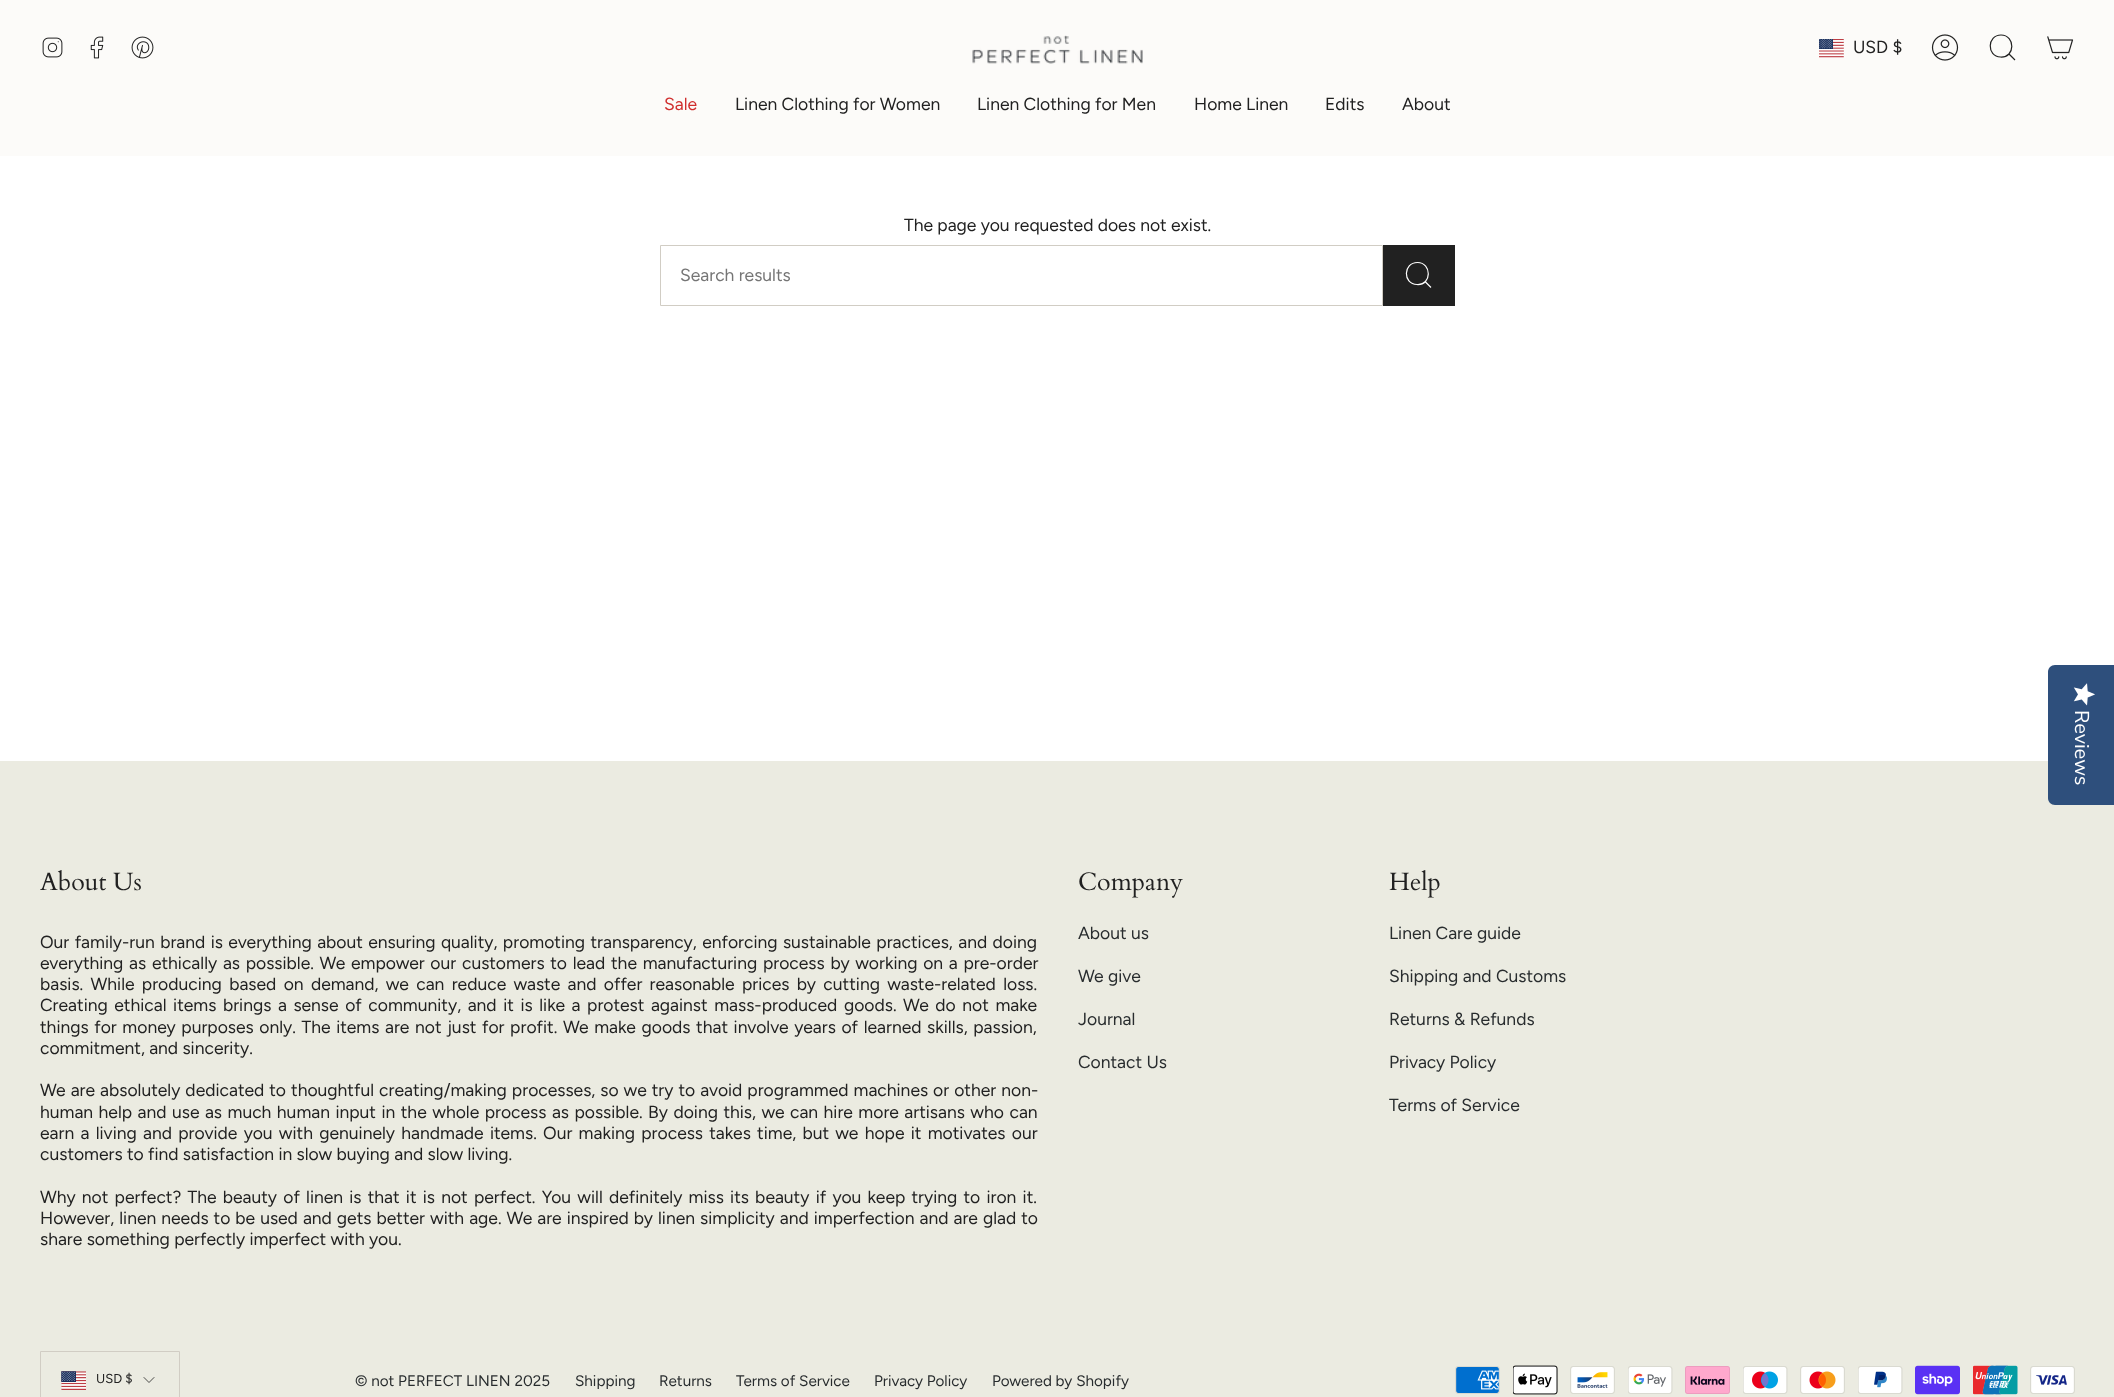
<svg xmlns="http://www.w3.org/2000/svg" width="2114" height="1397">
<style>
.a{font:17.5px Figtree;fill:#212121}
.b{font:17.5px Figtree;fill:#d02e2e}
.c{font:17.5px Figtree;fill:#757575}
.d{font:200 20px Nunito Sans;fill:#fff}
.e{font:25px Cardo;fill:#212121}
.f{font:17.5px Figtree;fill:#282c2e}
.g{font:13px Figtree;fill:#212121}
.h{font:15.25px Figtree;fill:#282c2e}
</style>
<rect width="100%" height="100%" fill="#fff"/>
<path fill="#fcfbf9" d="M0 0h2114v156H0z"/>
<image href="1.png" x="42" y="37" width="21" height="21"/>
<image href="2.png" x="90" y="36" width="14" height="23"/>
<image href="3.png" x="131" y="36" width="23" height="23"/>
<image href="4.png" x="972" y="35" width="171" height="29"/>
<image href="5.png" x="1819" y="39" width="25" height="19"/>
<image href="6.png" x="1931" y="34" width="28" height="27"/>
<path fill="none" stroke="#212121" stroke-width="1.2" d="M2001 35c14.5 0 14.5 23-.5 22c-14-.5-13.5-22 .5-22zm8 19l6 6"/>
<image href="7.png" x="2047" y="36" width="27" height="24"/>
<path fill="none" stroke="#d1cdc4" d="M660.5 245.5h722v60H660.5z"/>
<path fill="#212121" d="M1383 245h72v61H1383z"/>
<path fill="none" stroke="#fff" stroke-width="1.2" d="M1417.5 262.5c14.5 0 14.5 23-.5 22c-14.5-.5-14-22 .5-22zm7.5 19l6 6"/>
<path fill="#ebebe1" d="M0 761h2114v636H0z"/>
<path fill="#2e4f7c" d="M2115 665v140h-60c-4 0-7-3-7-7v-126c0-4 3-7 7-7z"/>
<image href="8.png" x="2073" y="683" width="22" height="23"/>
<path fill="none" stroke="#d1cdc4" d="M40.5 1351.5h139v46H40.5z"/>
<image href="9.png" x="61" y="1371" width="25" height="19"/>
<path fill="none" stroke="#212121" stroke-width="0.8" stroke-linecap="round" stroke-linejoin="round" d="M144 1377.5l5 5l5-5"/>
<image href="10.png" x="1455" y="1366" width="45" height="28"/>
<image href="11.png" x="1513" y="1365" width="45" height="30"/>
<image href="12.png" x="1570" y="1366" width="45" height="28"/>
<image href="13.png" x="1628" y="1366" width="45" height="28"/>
<image href="14.png" x="1685" y="1366" width="45" height="28"/>
<image href="15.png" x="1743" y="1366" width="45" height="28"/>
<image href="16.png" x="1800" y="1366" width="45" height="28"/>
<image href="17.png" x="1858" y="1366" width="45" height="28"/>
<image href="18.png" x="1915" y="1365" width="45" height="30"/>
<image href="19.png" x="1973" y="1365" width="45" height="30"/>
<image href="20.png" x="2030" y="1366" width="45" height="28"/>
<text class="a" x="1853" y="53">USD $</text>
<text class="b" x="664" y="110">Sale</text>
<text class="a" x="735" y="110">Linen Clothing for Women</text>
<text class="a" x="977" y="110">Linen Clothing for Men</text>
<text class="a" x="1194" y="110">Home Linen</text>
<text class="a" x="1325" y="110">Edits</text>
<text class="a" x="1402" y="110">About</text>
<text class="a" x="904" y="231">The page you requested does not exist.</text>
<text class="c" x="680" y="281">Search results</text>
<text class="d" x="2075" y="710" transform="rotate(90 2075 710)">Reviews</text>
<text class="e" x="40" y="890">About Us</text>
<text class="a" x="40" y="948" word-spacing="1.1">Our family-run brand is everything about ensuring quality, promoting transparency, enforcing sustainable practices, and doing</text>
<text class="a" x="40" y="969" word-spacing="1.4">everything as ethically as possible. We empower our customers to lead the manufacturing process by working on a pre-order</text>
<text class="a" x="40" y="990" word-spacing="3">basis. While producing based on demand, we can reduce waste and offer reasonable prices by cutting waste-related loss.</text>
<text class="a" x="40" y="1011" word-spacing="2.25">Creating ethical items brings a sense of community, and it is like a protest against mass-produced goods. We do not make</text>
<text class="a" x="40" y="1033" word-spacing="1.3">things for money purposes only. The items are not just for profit. We make goods that involve years of learned skills, passion,</text>
<text class="a" x="40" y="1054">commitment, and sincerity.</text>
<text class="a" x="40" y="1096" word-spacing="0.7">We are absolutely dedicated to thoughtful creating/making processes, so we try to avoid programmed machines or other non-</text>
<text class="a" x="40" y="1118" word-spacing="1.15">human help and use as much human input in the whole process as possible. By doing this, we can hire more artisans who can</text>
<text class="a" x="40" y="1139" word-spacing="1.95">earn a living and provide you with genuinely handmade items. Our making process takes time, but we hope it motivates our</text>
<text class="a" x="40" y="1160">customers to find satisfaction in slow buying and slow living.</text>
<text class="a" x="40" y="1203" word-spacing="1.9">Why not perfect? The beauty of linen is that it is not perfect. You will definitely miss its beauty if you keep trying to iron it.</text>
<text class="a" x="40" y="1224" word-spacing="0.7">However, linen needs to be used and gets better with age. We are inspired by linen simplicity and imperfection and are glad to</text>
<text class="a" x="40" y="1245">share something perfectly imperfect with you.</text>
<text class="e" x="1078" y="890">Company</text>
<text class="f" x="1078" y="939">About us</text>
<text class="f" x="1078" y="982">We give</text>
<text class="f" x="1078" y="1025">Journal</text>
<text class="f" x="1078" y="1068">Contact Us</text>
<text class="e" x="1389" y="890">Help</text>
<text class="f" x="1389" y="939">Linen Care guide</text>
<text class="f" x="1389" y="982">Shipping and Customs</text>
<text class="f" x="1389" y="1025">Returns &amp; Refunds</text>
<text class="f" x="1389" y="1068">Privacy Policy</text>
<text class="f" x="1389" y="1111">Terms of Service</text>
<text class="g" x="96" y="1383">USD $</text>
<text class="h" x="355" y="1386">© not PERFECT LINEN 2025</text>
<text class="h" x="575" y="1386">Shipping</text>
<text class="h" x="659" y="1386">Returns</text>
<text class="h" x="736" y="1386">Terms of Service</text>
<text class="h" x="874" y="1386">Privacy Policy</text>
<text class="h" x="992" y="1386">Powered by Shopify</text>
</svg>
